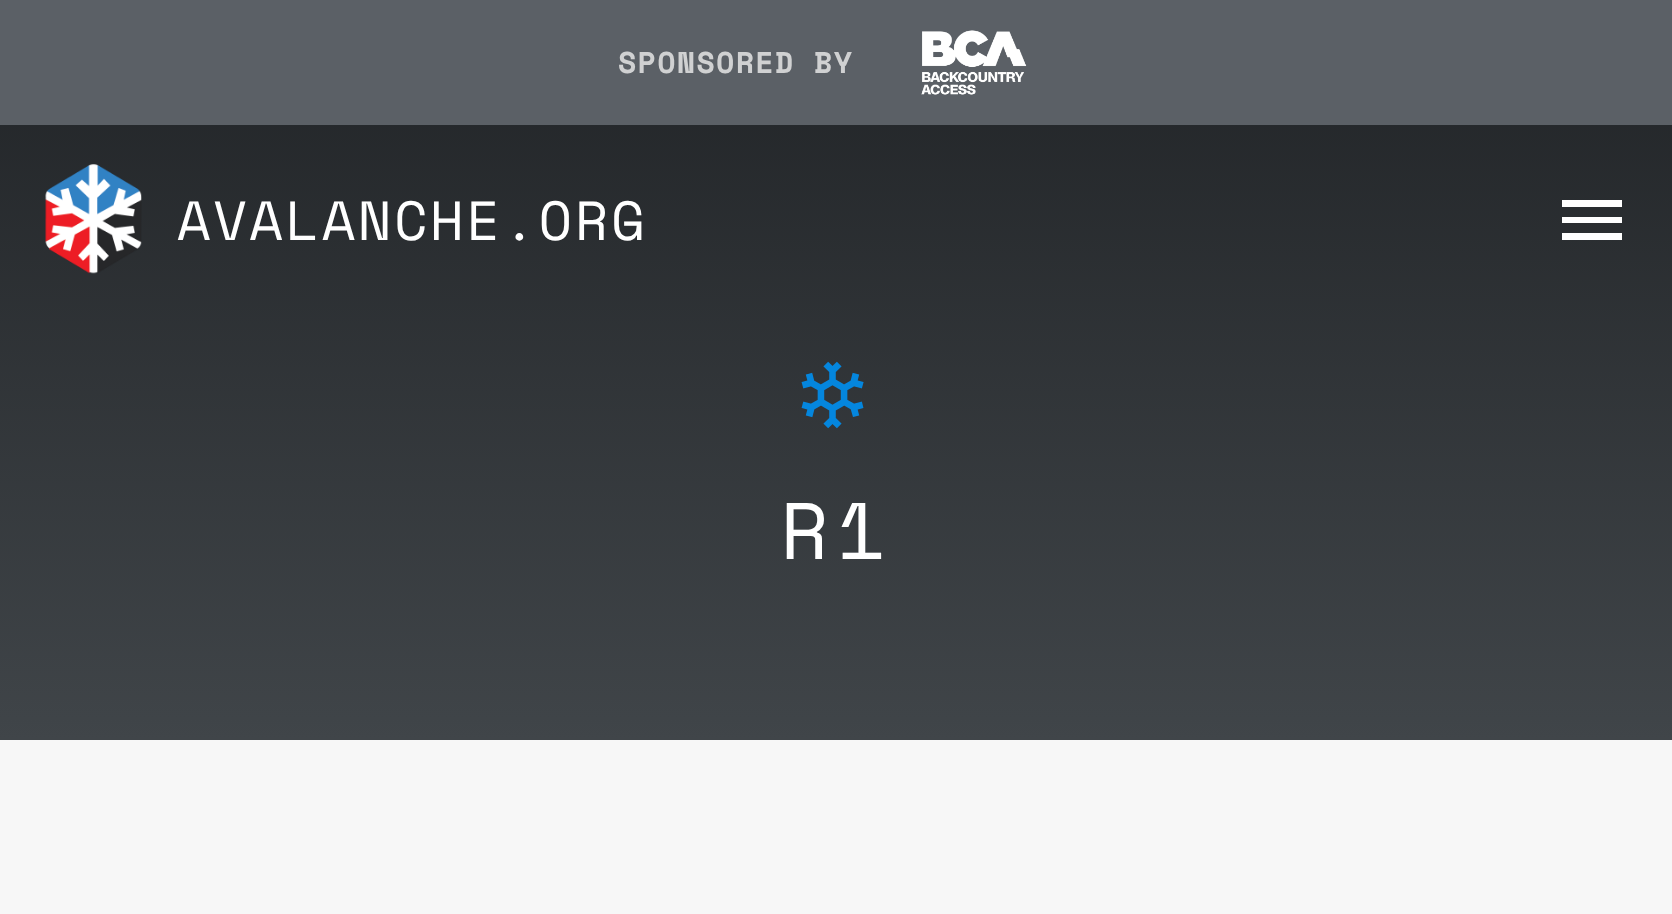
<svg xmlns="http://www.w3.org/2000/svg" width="1672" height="914">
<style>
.a{font:bold 30px Space Mono;letter-spacing:1.25px;fill:#d0d1d2}
.b{font:55px Space Mono;letter-spacing:2.5px;fill:#fff}
.c{font:80px Space Mono;letter-spacing:8px;fill:#fff}
</style>
<defs>
<linearGradient id="g1" gradientUnits="userSpaceOnUse" x1="836" y1="0" x2="836" y2="740"><stop offset="0" stop-color="#202326"/><stop offset="1" stop-color="#404549"/></linearGradient>
</defs>
<rect width="100%" height="100%" fill="#f7f7f7"/>
<path fill="#5b6066" d="M0 0h1672v125H0z"/>
<image href="1.png" x="921" y="30" width="106" height="65"/>
<path fill="url(#g1)" d="M0 125h1672v615H0z"/>
<image href="2.png" x="45" y="164" width="97" height="110"/>
<path fill="#fff" d="M1562 200h60v7h-60zm0 17h60v6h-60zm0 16h60v7h-60z"/>
<image href="3.png" x="801" y="361" width="63" height="68"/>
<text class="a" x="618" y="73">SPONSORED BY</text>
<text class="b" x="177" y="240">AVALANCHE.ORG</text>
<text class="c" x="780" y="559">R1</text>
</svg>
